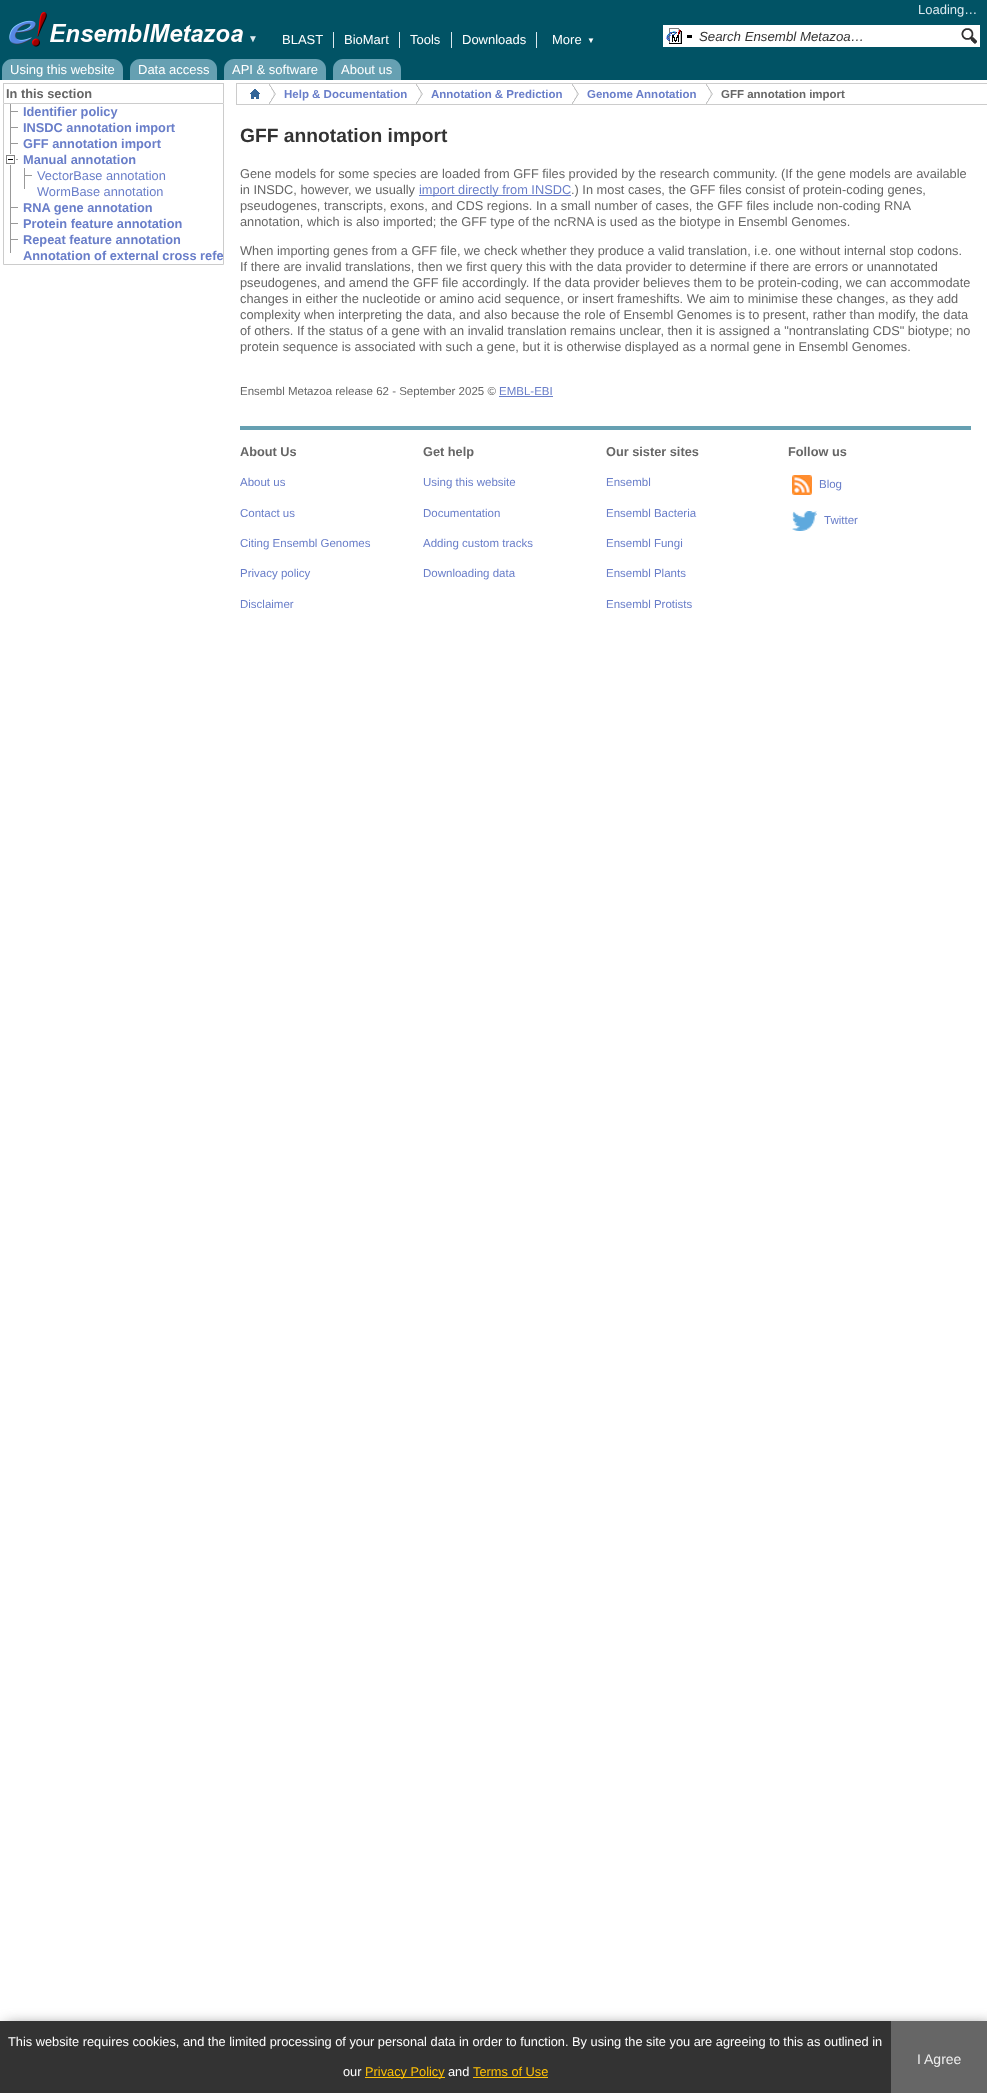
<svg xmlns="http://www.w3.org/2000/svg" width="987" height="2093">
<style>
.a{font:10px Liberation Sans;fill:#dce9ef}
.b{font:13px Liberation Sans;fill:#dce9ef}
.c{font:13px Liberation Sans;fill:#fff}
.d{font:8px Liberation Sans;fill:#fff}
.e{font:italic 13.25px Liberation Sans;fill:#333}
.f{font:bold 12.8px Liberation Sans;fill:#666}
.g{font:bold 12.8px Liberation Sans;fill:#697ec9}
.h{font:12.8px Liberation Sans;fill:#697ec9}
.i{font:bold 11.5px Liberation Sans;fill:#697ec9}
.j{font:bold 11.5px Liberation Sans;fill:#666}
.k{font:bold 19.25px Liberation Sans;fill:#333}
.l{font:12.8px Liberation Sans;fill:#666}
.m{font:11.5px Liberation Sans;fill:#666}
.n{font:11.5px Liberation Sans;fill:#697ec9}
.o{font:bold 12.75px Liberation Sans;fill:#666}
.p{font:12.8px Liberation Sans;fill:#fff}
.q{font:12.8px Liberation Sans;fill:#ffc107}
.r{font:14px Liberation Sans;fill:#eee}
</style>
<rect width="100%" height="100%" fill="#fff"/>
<path fill="#015365" d="M0 0h987v80H0z"/>
<image href="1.png" x="9" y="12" width="38" height="35"/>
<image href="2.png" x="50" y="24" width="193" height="18"/>
<path fill="#dce9ef" d="M333 32h1v16H333z"/>
<path fill="#dce9ef" d="M399 32h1v16H399z"/>
<path fill="#dce9ef" d="M451 32h1v16H451z"/>
<path fill="#dce9ef" d="M536 32h1v16H536z"/>
<path fill="#fff" d="M663 25h317v22H663z"/>
<image href="3.png" x="666" y="28" width="16" height="16"/>
<path fill="#000" d="M687 35h5v3H687z"/>
<image href="4.png" x="961" y="28" width="16" height="16"/>
<path fill="#66a0b2" d="M12 59h101c5.5 0 10 4.5 10 10v11h-121v-11c0-5.5 4.5-10 10-10z"/>
<path fill="#66a0b2" d="M140 59h67c5.5 0 10 4.5 10 10v11h-87v-11c0-5.5 4.5-10 10-10z"/>
<path fill="#66a0b2" d="M234 59h82c5.5 0 10 4.5 10 10v11h-102v-11c0-5.5 4.5-10 10-10z"/>
<path fill="#66a0b2" d="M343 59h48c5.5 0 10 4.5 10 10v11h-68v-11c0-5.5 4.5-10 10-10z"/>
<path fill="#ccc" d="M3 83h221v1H3z"/>
<path fill="#ccc" d="M223 83h1v20H223z"/>
<path fill="#ccc" d="M3 83h1v20H3z"/>
<path fill="none" stroke="#ccc" d="M3.5 103.5h220v161H3.5z"/>
<path fill="#999" d="M10 104h1v149H10z"/>
<path fill="#999" d="M11 111h7v1H11z"/>
<path fill="#999" d="M11 127h7v1H11z"/>
<path fill="#999" d="M11 143h7v1H11z"/>
<image href="5.png" x="6" y="154" width="12" height="11"/>
<path fill="#999" d="M24 168h1v21H24z"/>
<path fill="#999" d="M25 175h7v1H25z"/>
<path fill="#999" d="M11 207h7v1H11z"/>
<path fill="#999" d="M11 223h7v1H11z"/>
<path fill="#999" d="M11 239h7v1H11z"/>
<path fill="#ccc" d="M236 83h751v1H236z"/>
<path fill="#ccc" d="M236 104h751v1H236z"/>
<path fill="#ccc" d="M236 83h1v22H236z"/>
<image href="6.png" x="269" y="84" width="7" height="20"/>
<image href="7.png" x="250" y="89" width="10" height="10"/>
<image href="6.png" x="416" y="84" width="7" height="20"/>
<image href="6.png" x="572" y="84" width="7" height="20"/>
<image href="6.png" x="706" y="84" width="7" height="20"/>
<path fill="#697ec9" d="M419 195h152v1H419z"/>
<path fill="#697ec9" d="M499 396h54v1H499z"/>
<path fill="#66a0b2" d="M240 426h731v4H240z"/>
<image href="8.png" x="792" y="475" width="20" height="20"/>
<image href="9.png" x="792" y="511" width="25" height="20"/>
<path fill="#666" filter="blur(7.5px)" d="M5 2026h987v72H5z"/>
<path fill="#333" d="M0 2021h891v72H0z"/>
<path fill="#ffc107" d="M365 2077h80v1H365z"/>
<path fill="#ffc107" d="M473 2077h75v1H473z"/>
<path fill="#666" d="M891 2021h96v72H891z"/>
<text class="a" x="248" y="42">▼</text>
<text class="b" x="918" y="14">Loading…</text>
<text class="c" x="282" y="44">BLAST</text>
<text class="c" x="344" y="44">BioMart</text>
<text class="c" x="410" y="44">Tools</text>
<text class="c" x="462" y="44">Downloads</text>
<text class="c" x="552" y="44">More</text>
<text class="d" x="587" y="43">▼</text>
<text class="e" x="699" y="41">Search Ensembl Metazoa…</text>
<text class="c" x="10" y="74">Using this website</text>
<text class="c" x="138" y="74">Data access</text>
<text class="c" x="232" y="74">API &amp; software</text>
<text class="c" x="341" y="74">About us</text>
<text class="f" x="6" y="98">In this section</text>
<text class="g" x="23" y="116">Identifier policy</text>
<text class="g" x="23" y="132">INSDC annotation import</text>
<text class="g" x="23" y="148">GFF annotation import</text>
<text class="g" x="23" y="164">Manual annotation</text>
<text class="h" x="37" y="180">VectorBase annotation</text>
<text class="h" x="37" y="196">WormBase annotation</text>
<text class="g" x="23" y="212">RNA gene annotation</text>
<text class="g" x="23" y="228">Protein feature annotation</text>
<text class="g" x="23" y="244">Repeat feature annotation</text>
<text class="g" x="23" y="260">Annotation of external cross refe</text>
<text class="i" x="284" y="98">Help &amp; Documentation</text>
<text class="i" x="431" y="98">Annotation &amp; Prediction</text>
<text class="i" x="587" y="98">Genome Annotation</text>
<text class="j" x="721" y="98">GFF annotation import</text>
<text class="k" x="240" y="142">GFF annotation import</text>
<text class="l" x="240" y="178">Gene models for some species are loaded from GFF files provided by the research community. (If the gene models are available</text>
<text class="l" x="240" y="194">in INSDC, however, we usually</text>
<text class="h" x="419" y="194">import directly from INSDC</text>
<text class="l" x="571" y="194">.) In most cases, the GFF files consist of protein-coding genes,</text>
<text class="l" x="240" y="210">pseudogenes, transcripts, exons, and CDS regions. In a small number of cases, the GFF files</text>
<text class="l" x="773" y="210">include non-coding RNA</text>
<text class="l" x="240" y="226">annotation, which is also imported; the GFF type of the ncRNA is used as the biotype in Ensembl Genomes.</text>
<text class="l" x="240" y="255">When importing genes from a GFF file, we check whether they produce a valid translation, i.e. one without internal stop codons.</text>
<text class="l" x="240" y="271">If there are invalid translations, then we first query this with the data provider to determine if there are errors or unannotated</text>
<text class="l" x="240" y="287">pseudogenes, and amend the GFF file accordingly. If the data provider believes them to be protein-coding, we can accommodate</text>
<text class="l" x="240" y="303">changes in either the nucleotide or amino acid sequence, or insert frameshifts. We aim to minimise these changes, as they add</text>
<text class="l" x="240" y="319">complexity when interpreting the data, and also because the role of Ensembl Genomes is to present, rather than modify, the data</text>
<text class="l" x="240" y="335">of others. If the status of a gene with an invalid translation remains unclear, then it is assigned a "nontranslating CDS" biotype; no</text>
<text class="l" x="240" y="351">protein sequence is associated with such a gene, but it is otherwise displayed as a normal gene in Ensembl Genomes.</text>
<text class="m" x="240" y="395">Ensembl Metazoa release 62 - September 2025 ©</text>
<text class="n" x="499" y="395">EMBL-EBI</text>
<text class="o" x="240" y="456">About Us</text>
<text class="n" x="240" y="486">About us</text>
<text class="n" x="240" y="517">Contact us</text>
<text class="n" x="240" y="547">Citing Ensembl Genomes</text>
<text class="n" x="240" y="577">Privacy policy</text>
<text class="n" x="240" y="608">Disclaimer</text>
<text class="o" x="423" y="456">Get help</text>
<text class="n" x="423" y="486">Using this website</text>
<text class="n" x="423" y="517">Documentation</text>
<text class="n" x="423" y="547">Adding custom tracks</text>
<text class="n" x="423" y="577">Downloading data</text>
<text class="o" x="606" y="456">Our sister sites</text>
<text class="n" x="606" y="486">Ensembl</text>
<text class="n" x="606" y="517">Ensembl Bacteria</text>
<text class="n" x="606" y="547">Ensembl Fungi</text>
<text class="n" x="606" y="577">Ensembl Plants</text>
<text class="n" x="606" y="608">Ensembl Protists</text>
<text class="o" x="788" y="456">Follow us</text>
<text class="n" x="819" y="488">Blog</text>
<text class="n" x="824" y="524">Twitter</text>
<text class="p" x="8" y="2046">This website requires cookies, and the limited processing of your personal data in order to function. By using the site you are agreeing to this as outlined in</text>
<text class="p" x="343" y="2076">our</text>
<text class="q" x="365" y="2076">Privacy Policy</text>
<text class="p" x="448" y="2076">and</text>
<text class="q" x="473" y="2076">Terms of Use</text>
<text class="r" x="917" y="2064">I Agree</text>
</svg>
